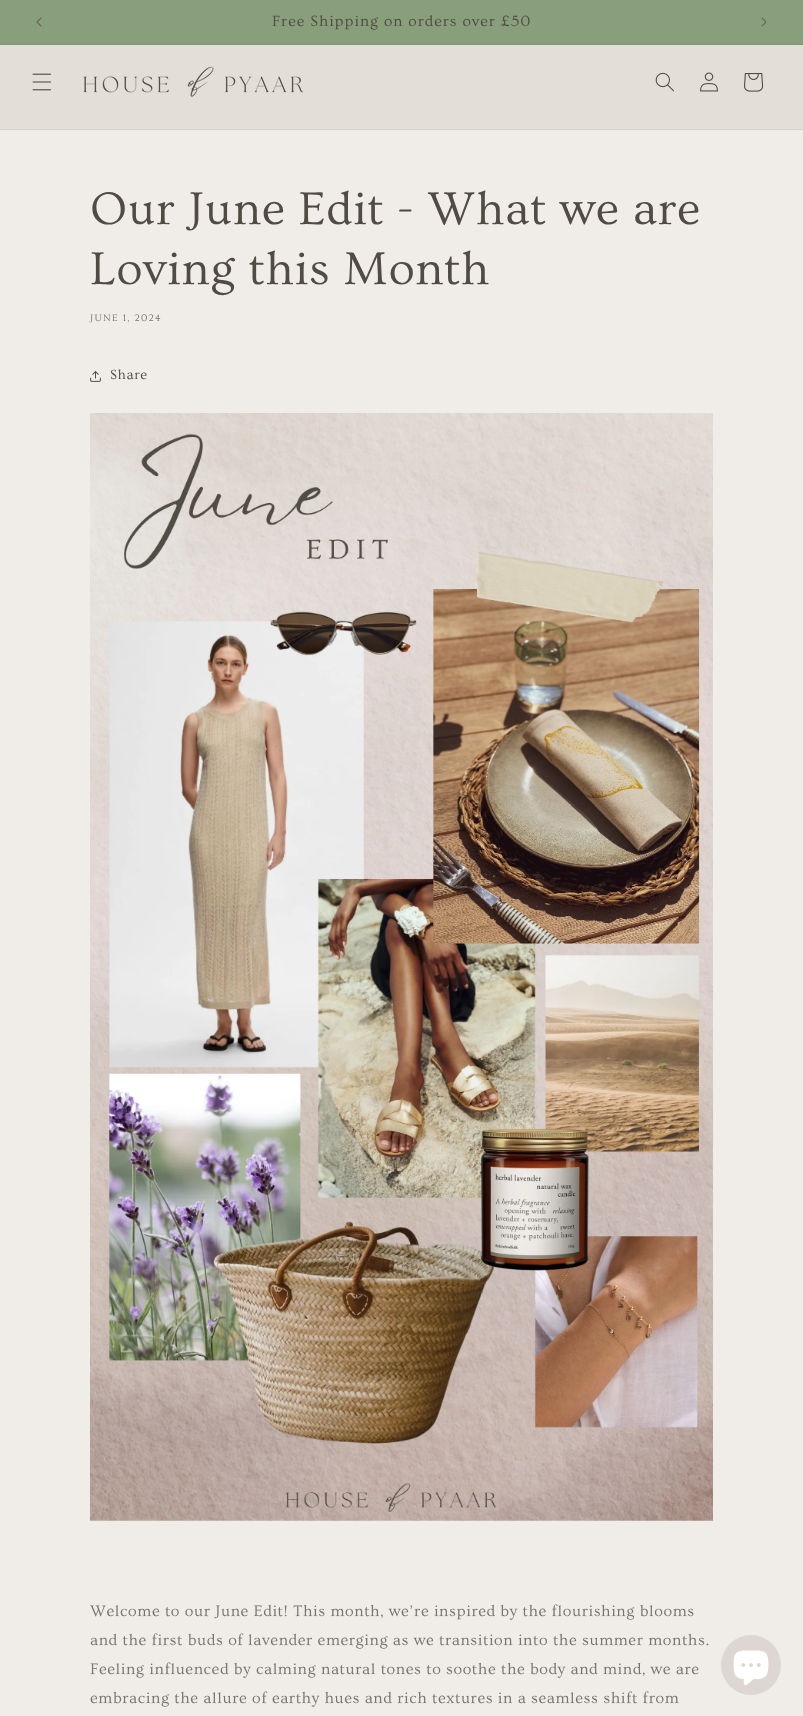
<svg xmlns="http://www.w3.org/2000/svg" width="803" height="1716">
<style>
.a{font:15.6px Ovo;letter-spacing:1px;fill:#504c44}
.b{font:48px Ovo;letter-spacing:0.75px;fill:#504c44}
.c{font:10px Ovo;letter-spacing:1.25px;fill:#78746d}
.d{font:14px Ovo;letter-spacing:0.6px;fill:#504c44}
.e{font:16px Ovo;letter-spacing:0.6px;fill:#78746d}
</style>
<rect width="100%" height="100%" fill="#f0ede9"/>
<path fill="#899e7b" d="M0 0h803v44H0z"/>
<path fill="#849777" d="M0 44h803v1H0z"/>
<image href="1.png" x="36" y="17" width="6" height="10"/>
<image href="2.png" x="761" y="17" width="6" height="10"/>
<path fill="#e3dfd7" d="M0 45h803v84H0z"/>
<path fill="#d7d3cb" d="M0 129h803v1H0z"/>
<image href="3.png" x="32" y="73" width="20" height="18"/>
<image href="4.png" x="83" y="66" width="221" height="31"/>
<image href="5.png" x="655" y="72" width="19" height="20"/>
<image href="6.png" x="700" y="72" width="18" height="20"/>
<image href="7.png" x="744" y="73" width="20" height="19"/>
<image href="8.png" x="90" y="371" width="11" height="11"/>
<image href="9.png" x="90" y="413" width="623" height="1108"/>
<circle fill="#ded6d0" cx="751" cy="1665" r="30"/>
<image href="10.png" x="733" y="1650" width="36" height="36"/>
<text class="a" x="272" y="26">Free Shipping on orders over £50</text>
<text class="b" x="90" y="224">Our June Edit - What we are</text>
<text class="b" x="90" y="284">Loving this Month</text>
<text class="c" x="90" y="321">JUNE 1, 2024</text>
<text class="d" x="110" y="379">Share</text>
<text class="e" x="90" y="1616">Welcome to our June Edit! This month, we’re inspired by the flourishing blooms</text>
<text class="e" x="90" y="1645">and the first buds of lavender emerging as we transition into the summer months.</text>
<text class="e" x="90" y="1674">Feeling influenced by calming natural tones to soothe the body and mind, we are</text>
<text class="e" x="90" y="1703">embracing the allure of earthy hues and rich textures in a seamless shift from</text>
</svg>
